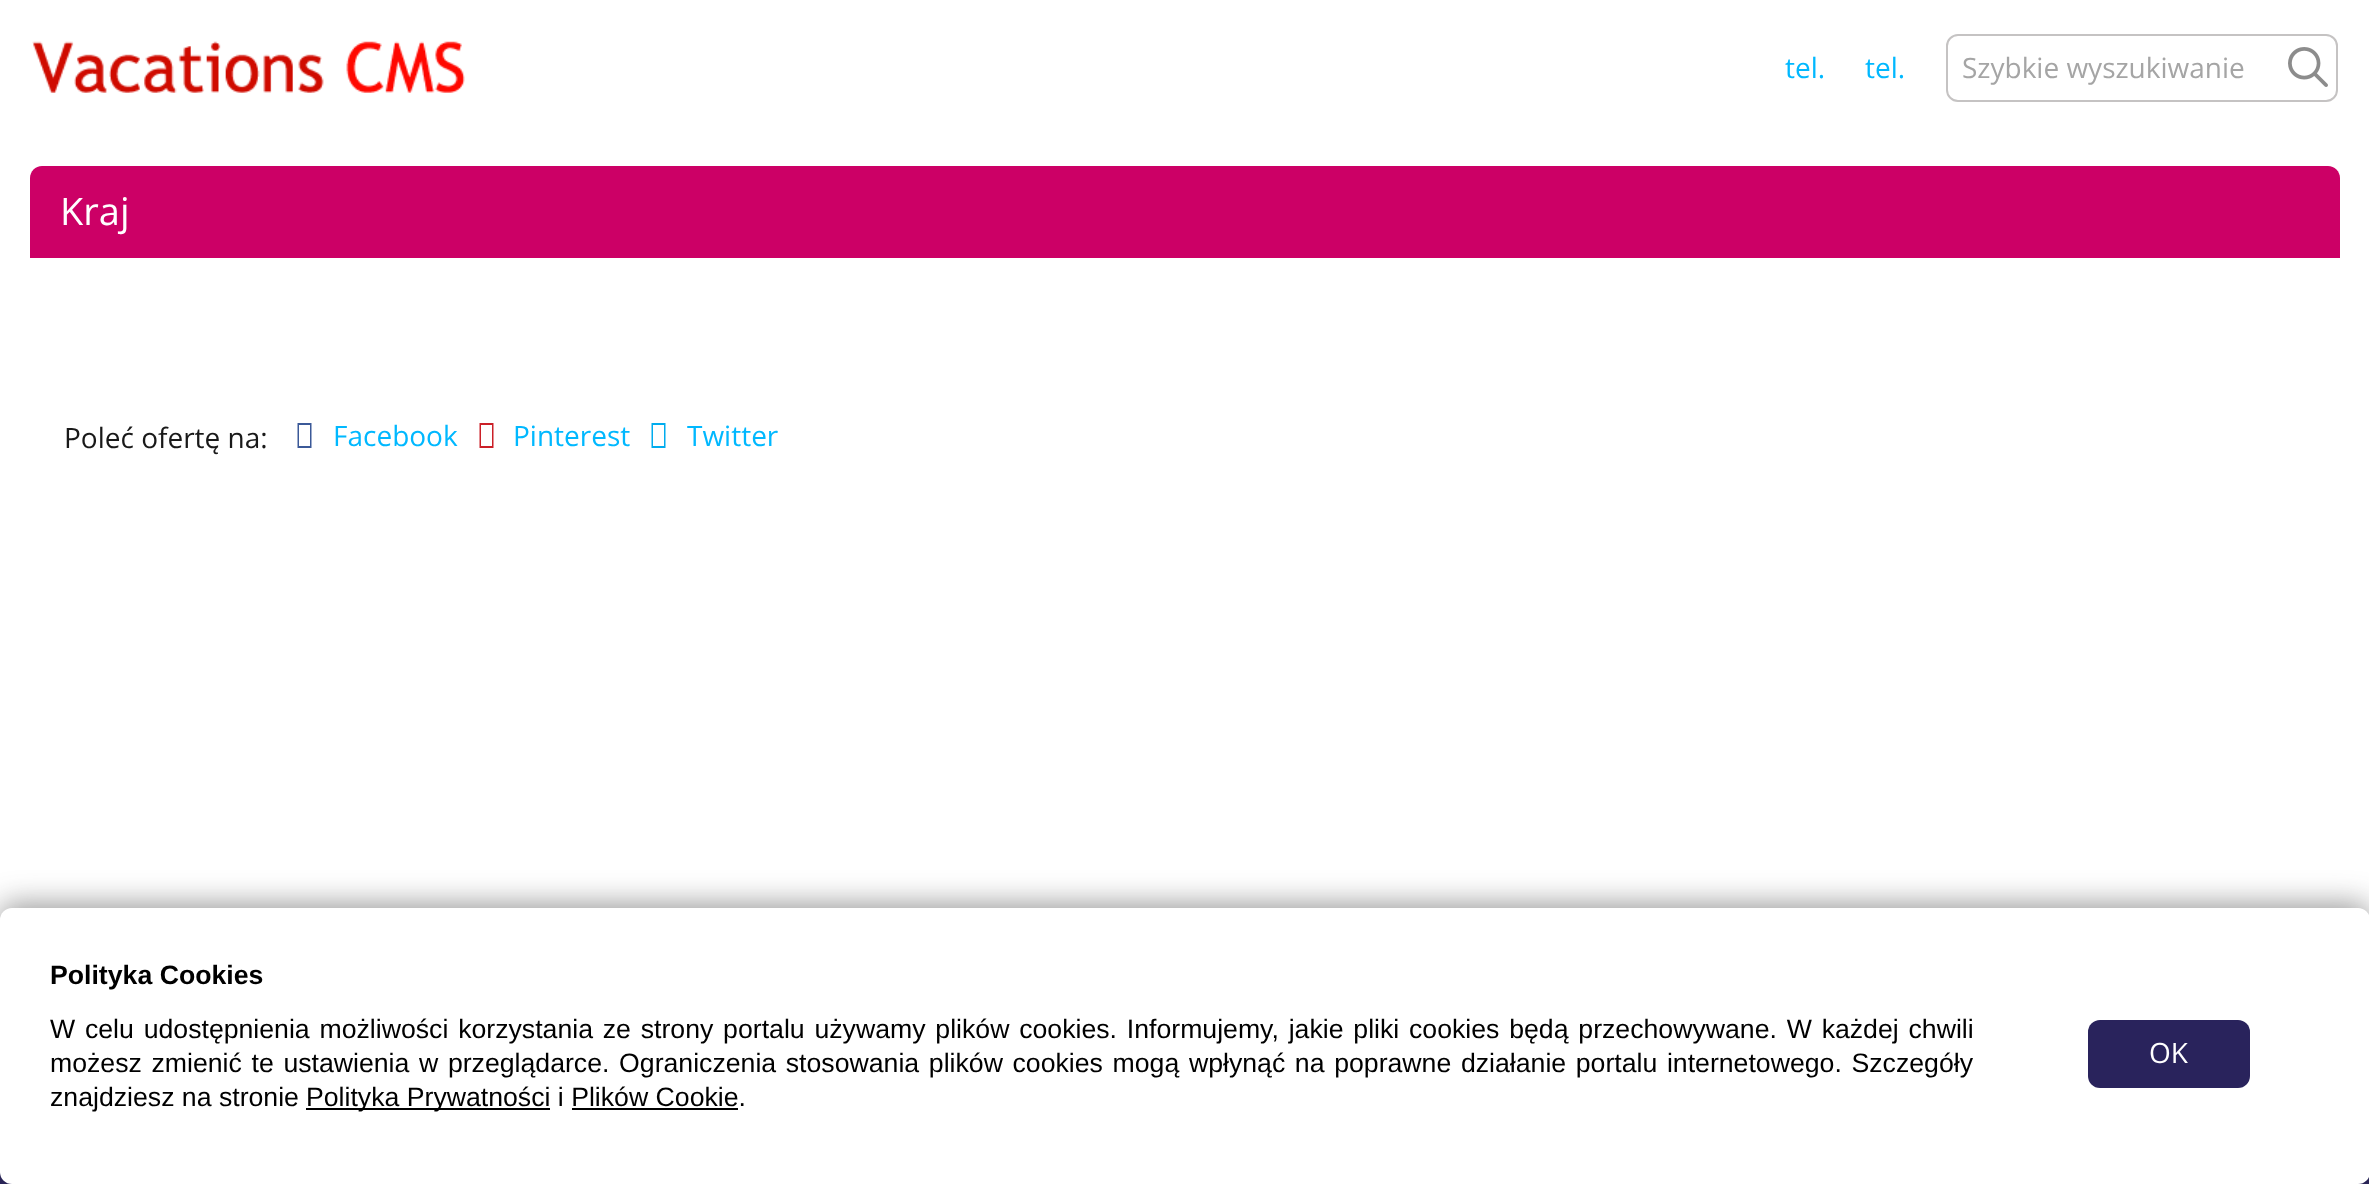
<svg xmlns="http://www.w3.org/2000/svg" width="2369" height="1184">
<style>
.a{font:28px Open Sans;fill:#00b8ff}
.b{font:28px Open Sans;fill:#a5a5a5}
.c{font:38px Open Sans;fill:#fff}
.d{font:28px Open Sans;fill:#191919}
.e{font:bold 26.67px Liberation Sans;fill:#000}
.f{font:26.67px Liberation Sans;fill:#000}
.g{font:28px Open Sans;fill:#fff}
</style>
<rect width="100%" height="100%" fill="#fff"/>
<image href="1.png" x="32" y="41" width="433" height="52"/>
<rect fill="none" stroke="#c5c3c3" stroke-width="2" x="1947" y="35" width="390" height="66" rx="11"/>
<image href="2.png" x="2288" y="47" width="40" height="40"/>
<path fill="#c06" d="M42 166h2286c6.5 0 12 5.5 12 12v80h-2310v-80c0-6.5 5.5-12 12-12z"/>
<path fill="#3b5998" d="M297.5 448v-25h14v25zm1.5-2h11v-21h-11z"/>
<path fill="#cb2028" d="M479.5 448v-25h14v25zm1.5-2h11v-21h-11z"/>
<path fill="#00acee" d="M651.5 448v-25h14v25zm1.5-2h11v-21h-11z"/>
<path fill="#29235c" d="M0 1172h2369v12H0z"/>
<rect fill="#32323280" filter="blur(15px)" y="904" width="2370" height="276" rx="12"/>
<rect fill="#fff" y="908" width="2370" height="276" rx="12"/>
<path fill="#000" d="M306 1108h244v2H306z"/>
<path fill="#000" d="M572 1108h166v2H572z"/>
<rect fill="#29235c" x="2088" y="1020" width="162" height="68" rx="12"/>
<text class="a" x="1785" y="78">tel.</text>
<text class="a" x="1865" y="78">tel.</text>
<text class="b" x="1962" y="78">Szybkie wyszukiwanie</text>
<text class="c" x="60" y="225">Kraj</text>
<text class="d" x="64" y="448">Poleć ofertę na:</text>
<text class="a" x="333" y="446">Facebook</text>
<text class="a" x="513" y="446">Pinterest</text>
<text class="a" x="687" y="446">Twitter</text>
<text class="e" x="50" y="984">Polityka Cookies</text>
<text class="f" x="50" y="1038" word-spacing="2.4">W celu udostępnienia możliwości korzystania ze strony portalu używamy plików cookies. Informujemy, jakie pliki cookies będą przechowywane. W każdej chwili</text>
<text class="f" x="50" y="1072" word-spacing="2.25">możesz zmienić te ustawienia w przeglądarce. Ograniczenia stosowania plików cookies mogą wpłynąć na poprawne działanie portalu internetowego. Szczegóły</text>
<text class="f" x="50" y="1106">znajdziesz na stronie</text>
<text class="f" x="306" y="1106">Polityka Prywatności i Plików Cookie.</text>
<text class="g" x="2149" y="1063">OK</text>
</svg>
